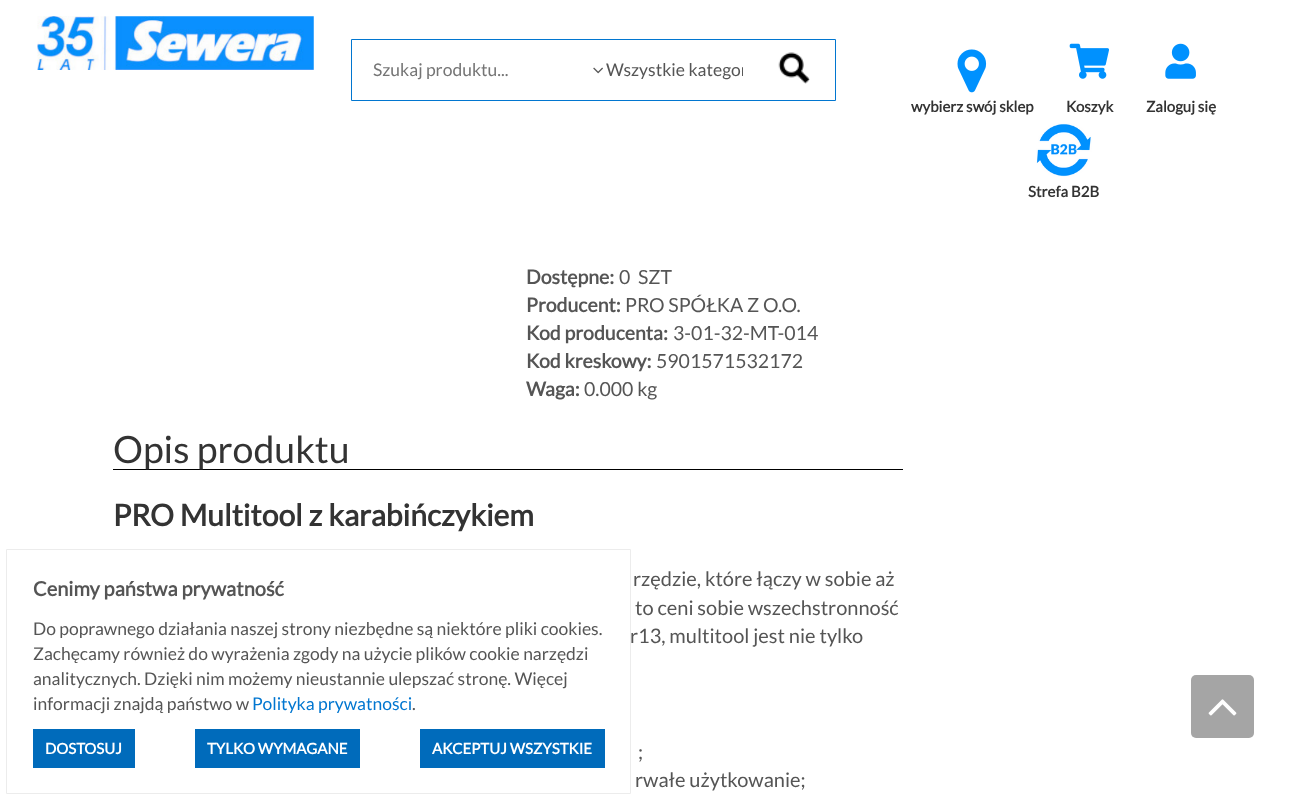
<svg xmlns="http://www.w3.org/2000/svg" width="1291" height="799">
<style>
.a{font:17.5px Lato;fill:#757575}
.b{font:17.5px Lato;fill:#555}
.c{font:bold 15px Lato;fill:#333}
.d{font:bold 19.5px Lato;fill:#555}
.e{font:19.5px Lato;fill:#555}
.f{font:37.5px Lato;fill:#333}
.g{font:bold 30px Lato;fill:#333}
.h{font:20px Lato;fill:#555}
.i{font:bold 20px Lato;fill:#555}
.j{font:17.5px Lato;fill:#0176d0}
.k{font:bold 15px Lato;fill:#fff}
</style>
<defs>
<clipPath id="clip1"><path d="M606 58h137v25H606z"/></clipPath>
</defs>
<rect width="100%" height="100%" fill="#fff"/>
<image href="1.png" x="37" y="16" width="277" height="54"/>
<path fill="none" stroke="#0176d0" d="M351.5 39.5h484v61H351.5z"/>
<image href="2.png" x="593" y="67" width="10" height="7"/>
<image href="3.png" x="778" y="52" width="32" height="32"/>
<image href="4.png" x="957" y="49" width="30" height="44"/>
<image href="5.png" x="1069" y="43" width="40" height="36"/>
<image href="6.png" x="1165" y="43" width="31" height="36"/>
<image href="7.png" x="1036" y="123" width="56" height="54"/>
<path fill="#000" d="M113 469h790v1H113z"/>
<path fill="none" stroke="#ececec" d="M6.5 549.5h624v244H6.5z"/>
<path fill="#006bbb" d="M33 729h102v39H33z"/>
<path fill="#006bbb" d="M195 729h165v39H195z"/>
<path fill="#006bbb" d="M420 729h185v39H420z"/>
<rect fill="#a5a5a5" x="1191" y="675" width="63" height="63" rx="5"/>
<image href="8.png" x="1208" y="699" width="29" height="17"/>
<text class="a" x="373" y="76">Szukaj produktu...</text>
<g clip-path="url(#clip1)">
<text class="b" x="606" y="76">Wszystkie kategor</text>
</g>
<text class="c" x="911" y="112">wybierz swój sklep</text>
<text class="c" x="1066" y="112">Koszyk</text>
<text class="c" x="1146" y="112">Zaloguj się</text>
<text class="c" x="1028" y="197">Strefa B2B</text>
<text class="d" x="526" y="284">Dostępne:</text>
<text class="e" x="619" y="284">0</text>
<text class="e" x="638" y="284">SZT</text>
<text class="d" x="526" y="312">Producent:</text>
<text class="e" x="625" y="312">PRO SPÓŁKA Z O.O.</text>
<text class="d" x="526" y="340">Kod producenta:</text>
<text class="e" x="673" y="340">3-01-32-MT-014</text>
<text class="d" x="526" y="368">Kod kreskowy:</text>
<text class="e" x="656" y="368">5901571532172</text>
<text class="d" x="526" y="396">Waga:</text>
<text class="e" x="584" y="396">0.000 kg</text>
<text class="f" x="113" y="463">Opis produktu</text>
<text class="g" x="113" y="526">PRO Multitool z karabińczykiem</text>
<text class="h" x="633" y="586">rzędzie, które łączy w sobie aż</text>
<text class="h" x="635" y="615">to ceni sobie wszechstronność</text>
<text class="h" x="630" y="643">r13, multitool jest nie tylko</text>
<text class="h" x="638" y="759">;</text>
<text class="h" x="635" y="787">rwałe użytkowanie;</text>
<text class="i" x="33" y="596">Cenimy państwa prywatność</text>
<text class="b" x="33" y="635">Do poprawnego działania naszej strony niezbędne są niektóre pliki cookies.</text>
<text class="b" x="33" y="660">Zachęcamy również do wyrażenia zgody na użycie plików cookie narzędzi</text>
<text class="b" x="33" y="685">analitycznych. Dzięki nim możemy nieustannie ulepszać stronę. Więcej</text>
<text class="b" x="33" y="710">informacji znajdą państwo w</text>
<text class="j" x="252" y="710">Polityka prywatności</text>
<text class="b" x="412" y="710">.</text>
<text class="k" x="45" y="754">DOSTOSUJ</text>
<text class="k" x="207" y="754">TYLKO WYMAGANE</text>
<text class="k" x="432" y="754">AKCEPTUJ WSZYSTKIE</text>
</svg>
